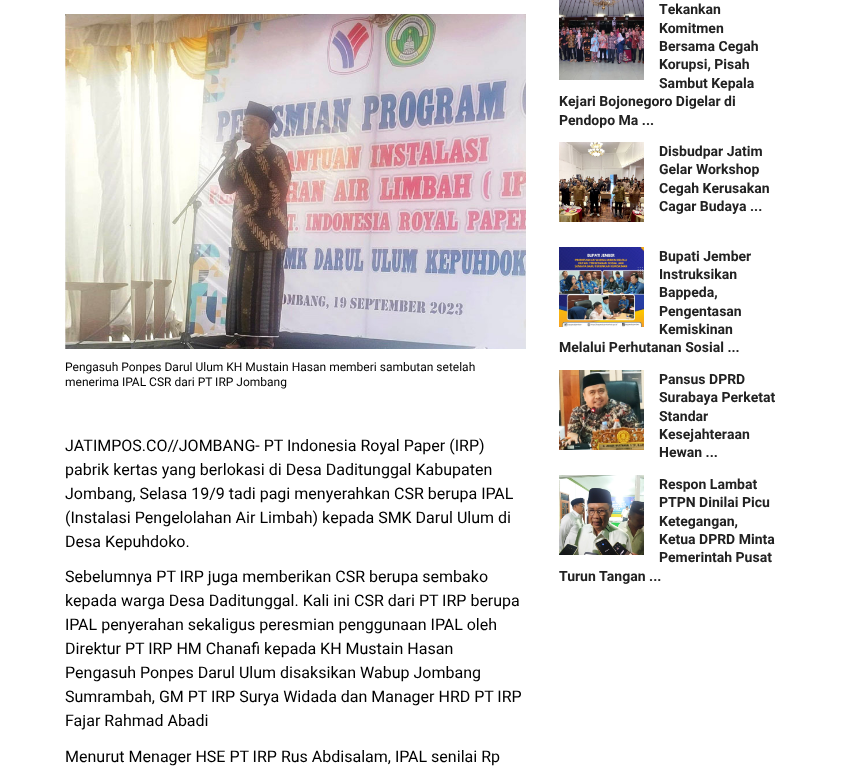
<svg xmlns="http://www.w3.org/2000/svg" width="841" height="767">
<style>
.a{font:12px Heebo;fill:#000}
.b{font:16px Heebo;fill:#000}
.c{font:bold 14px Heebo;fill:#222}
</style>
<rect width="100%" height="100%" fill="#fff"/>
<image href="1.png" x="65" y="14" width="461" height="335"/>
<image href="2.png" x="559" y="0" width="85" height="80"/>
<image href="3.png" x="559" y="142" width="85" height="80"/>
<image href="4.png" x="559" y="247" width="85" height="80"/>
<image href="5.png" x="559" y="370" width="85" height="80"/>
<image href="6.png" x="559" y="475" width="85" height="80"/>
<text class="a" x="65" y="371">Pengasuh Ponpes Darul Ulum KH Mustain Hasan memberi sambutan setelah</text>
<text class="a" x="65" y="386">menerima IPAL CSR dari PT IRP Jombang</text>
<text class="b" x="65" y="451">JATIMPOS.CO//JOMBANG- PT Indonesia Royal Paper (IRP)</text>
<text class="b" x="65" y="475">pabrik kertas yang berlokasi di Desa Daditunggal Kabupaten</text>
<text class="b" x="65" y="499">Jombang, Selasa 19/9 tadi pagi menyerahkan CSR berupa IPAL</text>
<text class="b" x="65" y="523">(Instalasi Pengelolahan Air Limbah) kepada SMK Darul Ulum di</text>
<text class="b" x="65" y="547">Desa Kepuhdoko.</text>
<text class="b" x="65" y="582">Sebelumnya PT IRP juga memberikan CSR berupa sembako</text>
<text class="b" x="65" y="606">kepada warga Desa Daditunggal. Kali ini CSR dari PT IRP berupa</text>
<text class="b" x="65" y="630">IPAL penyerahan sekaligus peresmian penggunaan IPAL oleh</text>
<text class="b" x="65" y="654">Direktur PT IRP HM Chanafi kepada KH Mustain Hasan</text>
<text class="b" x="65" y="678">Pengasuh Ponpes Darul Ulum disaksikan Wabup Jombang</text>
<text class="b" x="65" y="702">Sumrambah, GM PT IRP Surya Widada dan Manager HRD PT IRP</text>
<text class="b" x="65" y="726">Fajar Rahmad Abadi</text>
<text class="b" x="65" y="762">Menurut Menager HSE PT IRP Rus Abdisalam, IPAL senilai Rp</text>
<text class="c" x="659" y="14">Tekankan</text>
<text class="c" x="659" y="33">Komitmen</text>
<text class="c" x="659" y="51">Bersama Cegah</text>
<text class="c" x="659" y="69">Korupsi, Pisah</text>
<text class="c" x="659" y="88">Sambut Kepala</text>
<text class="c" x="559" y="106">Kejari Bojonegoro Digelar di</text>
<text class="c" x="559" y="125">Pendopo Ma ...</text>
<text class="c" x="659" y="156">Disbudpar Jatim</text>
<text class="c" x="659" y="174">Gelar Workshop</text>
<text class="c" x="659" y="193">Cegah Kerusakan</text>
<text class="c" x="659" y="211">Cagar Budaya ...</text>
<text class="c" x="659" y="261">Bupati Jember</text>
<text class="c" x="659" y="279">Instruksikan</text>
<text class="c" x="659" y="297">Bappeda,</text>
<text class="c" x="659" y="316">Pengentasan</text>
<text class="c" x="659" y="334">Kemiskinan</text>
<text class="c" x="559" y="352">Melalui Perhutanan Sosial ...</text>
<text class="c" x="659" y="384">Pansus DPRD</text>
<text class="c" x="659" y="402">Surabaya Perketat</text>
<text class="c" x="659" y="421">Standar</text>
<text class="c" x="659" y="439">Kesejahteraan</text>
<text class="c" x="659" y="457">Hewan ...</text>
<text class="c" x="659" y="489">Respon Lambat</text>
<text class="c" x="659" y="507">PTPN Dinilai Picu</text>
<text class="c" x="659" y="526">Ketegangan,</text>
<text class="c" x="659" y="544">Ketua DPRD Minta</text>
<text class="c" x="659" y="562">Pemerintah Pusat</text>
<text class="c" x="559" y="581">Turun Tangan ...</text>
</svg>
